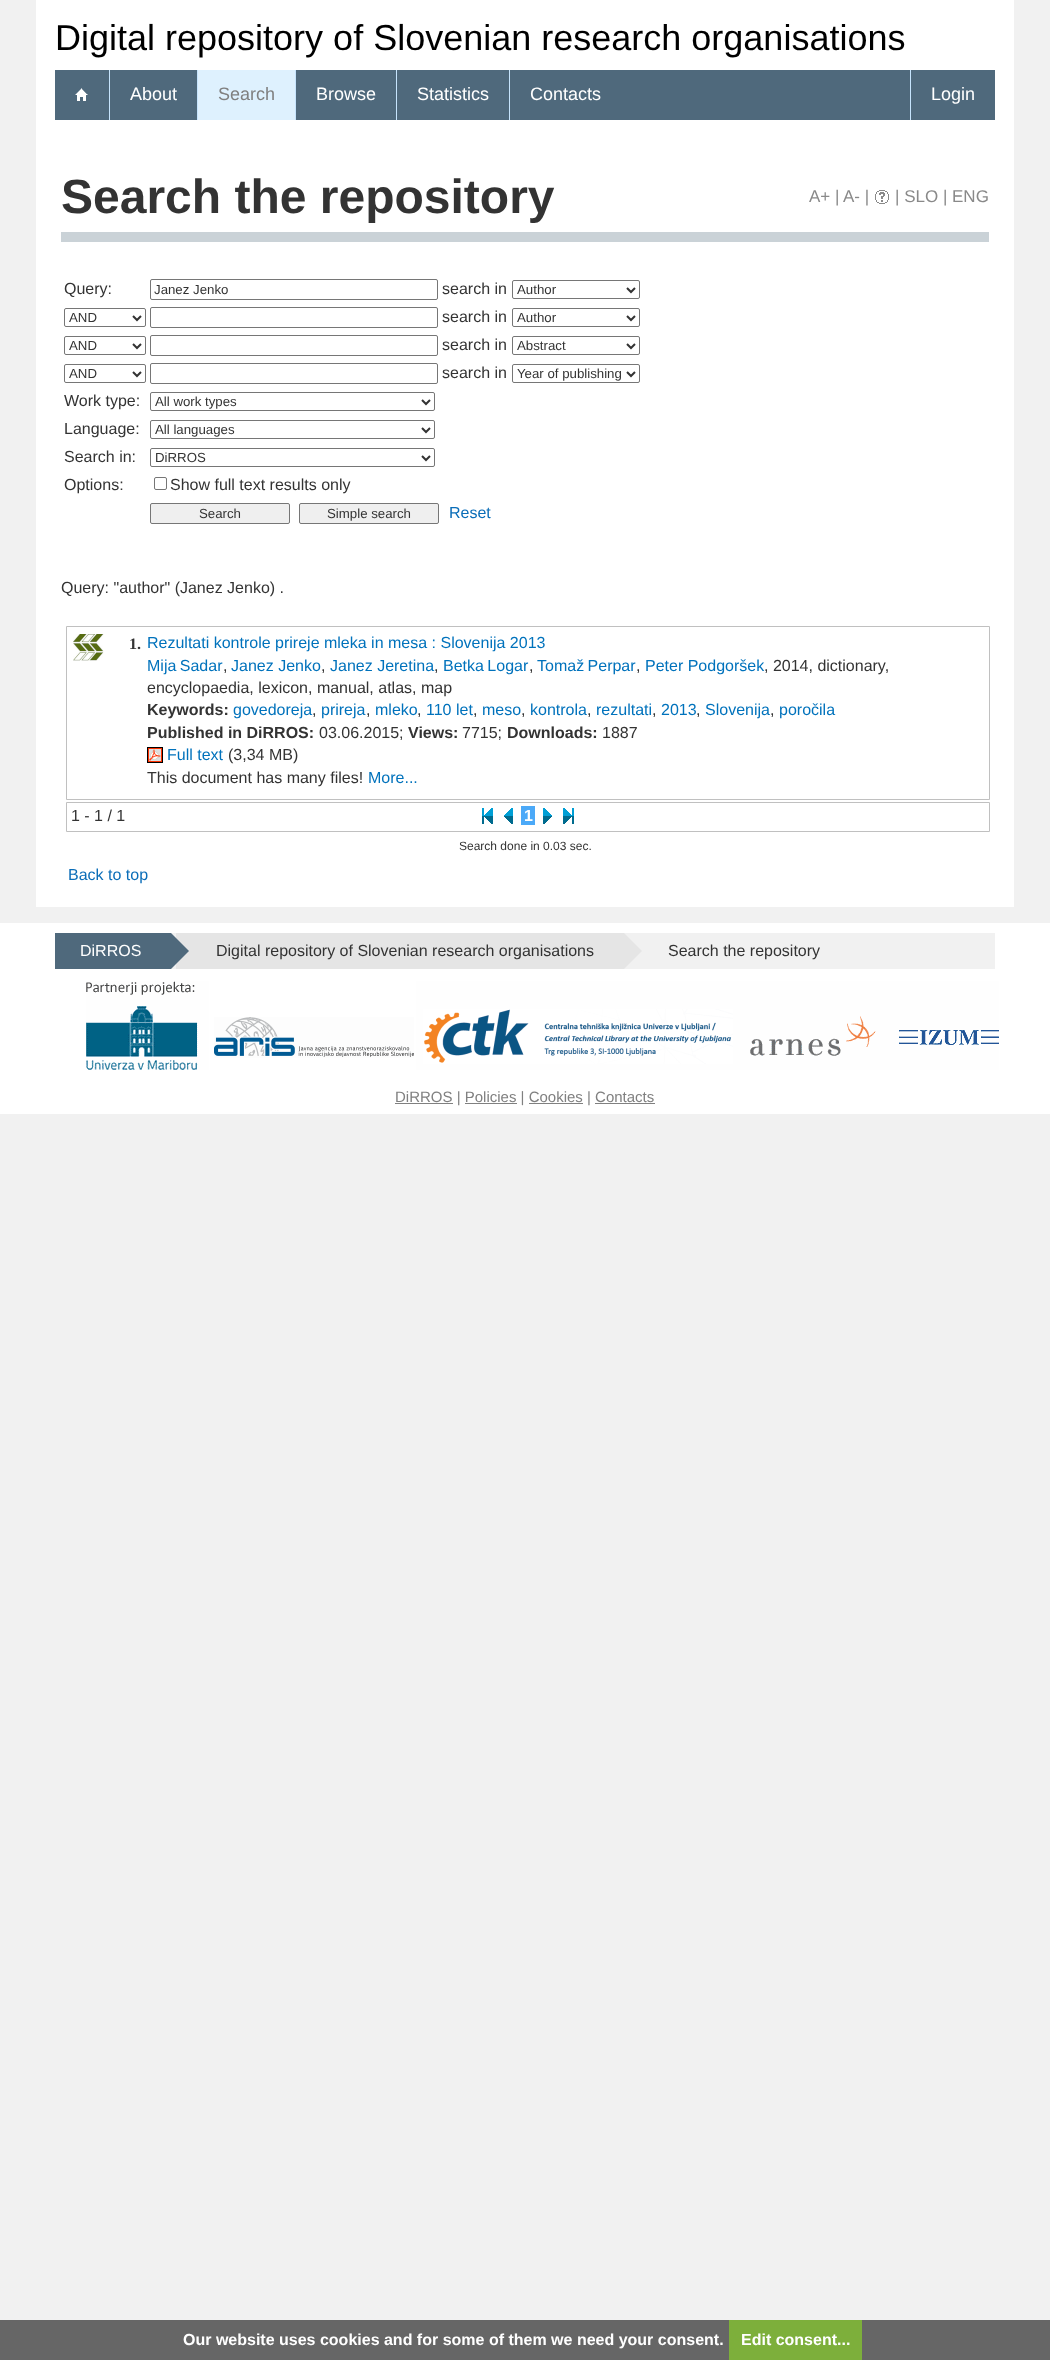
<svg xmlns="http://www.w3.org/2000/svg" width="1050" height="2360">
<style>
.a{font:36px Liberation Sans;fill:#000}
.b{font:18px Liberation Sans;fill:#fff}
.c{font:18px Liberation Sans;fill:#808080}
.d{font:bold 48px Liberation Sans;fill:#333}
.e{font:17px Liberation Sans;fill:#898989}
.f{font:16px Liberation Sans;fill:#333}
.g{font:13.25px Liberation Sans;fill:#333}
.h{font:16px Liberation Sans;fill:#0a6db8}
.i{font:bold 16px Liberation Serif;fill:#333}
.j{font:16px Liberation Sans;fill:#0072bc}
.k{font:bold 16px Liberation Sans;fill:#333}
.l{font:bold 16px Liberation Sans;fill:#fff}
.m{font:12px Liberation Sans;fill:#333}
.n{font:16px Liberation Sans;fill:#fff}
.o{font:15px Liberation Sans;fill:#808080}
</style>
<rect width="100%" height="100%" fill="#f1f1f1"/>
<path fill="#fff" d="M36 0h978v907H36z"/>
<path fill="#4f697c" d="M55 70h940v50H55z"/>
<image href="1.png" x="75" y="88" width="13" height="13"/>
<path fill="#c6e4fd" d="M109 70h1v50H109z"/>
<path fill="#def1fe" d="M198 70h97v50H198z"/>
<path fill="#c6e4fd" d="M197 70h1v50H197z"/>
<path fill="#c6e4fd" d="M295 70h1v50H295z"/>
<path fill="#c6e4fd" d="M396 70h1v50H396z"/>
<path fill="#c6e4fd" d="M509 70h1v50H509z"/>
<path fill="#c6e4fd" d="M910 70h1v50H910z"/>
<path fill="#cad2d7" d="M61 232h928v10H61z"/>
<image href="2.png" x="875" y="190" width="14" height="14"/>
<rect fill="none" stroke="#767676" x="150.5" y="279.5" width="287" height="20" rx="1.5"/>
<rect fill="none" stroke="#767676" x="512.5" y="280.5" width="127" height="18" rx="1.5"/>
<path fill="none" stroke="#333" stroke-width="2" d="M627 288l4 4l4-4"/>
<rect fill="none" stroke="#767676" x="64.5" y="308.5" width="81" height="18" rx="1.5"/>
<path fill="none" stroke="#333" stroke-width="2" d="M133 316l4 4l4-4"/>
<rect fill="none" stroke="#767676" x="150.5" y="307.5" width="287" height="20" rx="1.5"/>
<rect fill="none" stroke="#767676" x="512.5" y="308.5" width="127" height="18" rx="1.5"/>
<path fill="none" stroke="#333" stroke-width="2" d="M627 316l4 4l4-4"/>
<rect fill="none" stroke="#767676" x="64.5" y="336.5" width="81" height="18" rx="1.5"/>
<path fill="none" stroke="#333" stroke-width="2" d="M133 344l4 4l4-4"/>
<rect fill="none" stroke="#767676" x="150.5" y="335.5" width="287" height="20" rx="1.5"/>
<rect fill="none" stroke="#767676" x="512.5" y="336.5" width="127" height="18" rx="1.5"/>
<path fill="none" stroke="#333" stroke-width="2" d="M627 344l4 4l4-4"/>
<rect fill="none" stroke="#767676" x="64.5" y="364.5" width="81" height="18" rx="1.5"/>
<path fill="none" stroke="#333" stroke-width="2" d="M133 372l4 4l4-4"/>
<rect fill="none" stroke="#767676" x="150.5" y="363.5" width="287" height="20" rx="1.5"/>
<rect fill="none" stroke="#767676" x="512.5" y="364.5" width="127" height="18" rx="1.5"/>
<path fill="none" stroke="#333" stroke-width="2" d="M627 372l4 4l4-4"/>
<rect fill="none" stroke="#767676" x="150.5" y="392.5" width="284" height="18" rx="1.5"/>
<path fill="none" stroke="#333" stroke-width="2" d="M422 400l4 4l4-4"/>
<rect fill="none" stroke="#767676" x="150.5" y="420.5" width="284" height="18" rx="1.5"/>
<path fill="none" stroke="#333" stroke-width="2" d="M422 428l4 4l4-4"/>
<rect fill="none" stroke="#767676" x="150.5" y="448.5" width="284" height="18" rx="1.5"/>
<path fill="none" stroke="#333" stroke-width="2" d="M422 456l4 4l4-4"/>
<rect fill="none" stroke="#767676" x="154.5" y="477.5" width="12" height="12" rx="1.5"/>
<rect fill="#efefef" stroke="#767676" x="150.5" y="503.5" width="139" height="20" rx="1.5"/>
<rect fill="#efefef" stroke="#767676" x="299.5" y="503.5" width="139" height="20" rx="1.5"/>
<path fill="none" stroke="#c0c0c0" d="M66.5 626.5h923v173H66.5z"/>
<image href="3.png" x="73" y="634" width="31" height="27"/>
<image href="4.png" x="147" y="747" width="16" height="16"/>
<path fill="none" stroke="#c0c0c0" d="M66.5 802.5h923v29H66.5z"/>
<image href="5.png" x="482" y="808" width="11" height="16"/>
<image href="6.png" x="504" y="808" width="9" height="16"/>
<path fill="#4ba9f8" d="M521 806h14v19H521z"/>
<image href="7.png" x="543" y="808" width="9" height="16"/>
<image href="8.png" x="563" y="808" width="11" height="16"/>
<path fill="#fff" d="M0 923h1050v191H0z"/>
<path fill="#f1f1f1" d="M171 933h824v36H171z"/>
<path fill="#4f697c" d="M55 933h116v36H55z"/>
<path fill="#e5e5e5" d="M176 933h448v36H176z"/>
<path fill="#4f697c" d="M171 969v-36l18 18z"/>
<path fill="#e5e5e5" d="M624 969v-36l18 18z"/>
<image href="9.png" x="86" y="981" width="913" height="89"/>
<path fill="#808080" d="M395 1103h58v1H395z"/>
<path fill="#808080" d="M465 1103h52v1H465z"/>
<path fill="#808080" d="M529 1103h54v1H529z"/>
<path fill="#808080" d="M595 1103h60v1H595z"/>
<path fill="#666" d="M0 2320h1050v40H0z"/>
<path fill="#7daf3b" d="M729 2320h133v40H729z"/>
<text class="a" x="55" y="50">Digital repository of Slovenian research organisations</text>
<text class="b" x="130" y="100">About</text>
<text class="c" x="218" y="100">Search</text>
<text class="b" x="316" y="100">Browse</text>
<text class="b" x="417" y="100">Statistics</text>
<text class="b" x="530" y="100">Contacts</text>
<text class="b" x="931" y="100">Login</text>
<text class="d" x="61" y="213">Search the repository</text>
<text class="e" x="809" y="202">A+ |</text>
<text class="e" x="843" y="202">A- |</text>
<text class="e" x="895" y="202">| SLO | ENG</text>
<text class="f" x="64" y="294">Query:</text>
<text class="g" x="154" y="294">Janez Jenko</text>
<text class="f" x="442" y="294">search in</text>
<text class="g" x="517" y="294">Author</text>
<text class="g" x="69" y="322">AND</text>
<text class="f" x="442" y="322">search in</text>
<text class="g" x="517" y="322">Author</text>
<text class="g" x="69" y="350">AND</text>
<text class="f" x="442" y="350">search in</text>
<text class="g" x="517" y="350">Abstract</text>
<text class="g" x="69" y="378">AND</text>
<text class="f" x="442" y="378">search in</text>
<text class="g" x="517" y="378">Year of publishing</text>
<text class="f" x="64" y="406">Work type:</text>
<text class="g" x="155" y="406">All work types</text>
<text class="f" x="64" y="434">Language:</text>
<text class="g" x="155" y="434">All languages</text>
<text class="f" x="64" y="462">Search in:</text>
<text class="g" x="155" y="462">DiRROS</text>
<text class="f" x="64" y="490">Options:</text>
<text class="f" x="170" y="490">Show full text results only</text>
<text class="g" x="199" y="518">Search</text>
<text class="g" x="327" y="518">Simple search</text>
<text class="h" x="449" y="518">Reset</text>
<text class="f" x="61" y="593">Query: "author" (Janez Jenko) .</text>
<text class="i" x="129" y="649">1.</text>
<text class="j" x="147" y="648">Rezultati kontrole prireje mleka in mesa : Slovenija 2013</text>
<text class="j" x="147" y="671" word-spacing="-1">Mija Sadar</text>
<text class="f" x="223" y="671">,</text>
<text class="j" x="231" y="671">Janez Jenko</text>
<text class="f" x="321" y="671">,</text>
<text class="j" x="330" y="671">Janez Jeretina</text>
<text class="f" x="434" y="671">,</text>
<text class="j" x="443" y="671" word-spacing="-1">Betka Logar</text>
<text class="f" x="529" y="671">,</text>
<text class="j" x="537" y="671" word-spacing="-1">Tomaž Perpar</text>
<text class="f" x="636" y="671">,</text>
<text class="j" x="645" y="671">Peter Podgoršek</text>
<text class="f" x="764" y="671">, 2014, dictionary,</text>
<text class="f" x="147" y="693">encyclopaedia, lexicon, manual, atlas, map</text>
<text class="k" x="147" y="715">Keywords:</text>
<text class="j" x="233" y="715">govedoreja</text>
<text class="f" x="312" y="715">,</text>
<text class="j" x="321" y="715">prireja</text>
<text class="f" x="366" y="715">,</text>
<text class="j" x="375" y="715">mleko</text>
<text class="f" x="417" y="715">,</text>
<text class="j" x="426" y="715">110 let</text>
<text class="f" x="473" y="715">,</text>
<text class="j" x="482" y="715">meso</text>
<text class="f" x="521" y="715">,</text>
<text class="j" x="530" y="715">kontrola</text>
<text class="f" x="587" y="715">,</text>
<text class="j" x="596" y="715">rezultati</text>
<text class="f" x="652" y="715">,</text>
<text class="j" x="661" y="715">2013</text>
<text class="f" x="696" y="715">,</text>
<text class="j" x="705" y="715">Slovenija</text>
<text class="f" x="770" y="715">,</text>
<text class="j" x="779" y="715">poročila</text>
<text class="k" x="147" y="738">Published in DiRROS:</text>
<text class="f" x="319" y="738">03.06.2015;</text>
<text class="k" x="408" y="738">Views:</text>
<text class="f" x="462" y="738">7715;</text>
<text class="k" x="507" y="738">Downloads:</text>
<text class="f" x="602" y="738">1887</text>
<text class="j" x="167" y="760">Full text</text>
<text class="f" x="228" y="760">(3,34 MB)</text>
<text class="f" x="147" y="783">This document has many files!</text>
<text class="j" x="368" y="783">More...</text>
<text class="f" x="71" y="821">1 - 1 / 1</text>
<text class="l" x="524" y="821">1</text>
<text class="m" x="459" y="850">Search done in 0.03 sec.</text>
<text class="h" x="68" y="880">Back to top</text>
<text class="n" x="80" y="956">DiRROS</text>
<text class="f" x="216" y="956">Digital repository of Slovenian research organisations</text>
<text class="f" x="668" y="956">Search the repository</text>
<text class="o" x="395" y="1102">DiRROS | Policies | Cookies | Contacts</text>
<text class="l" x="183" y="2345">Our website uses cookies and for some of them we need your consent.</text>
<text class="l" x="741" y="2345">Edit consent...</text>
</svg>
